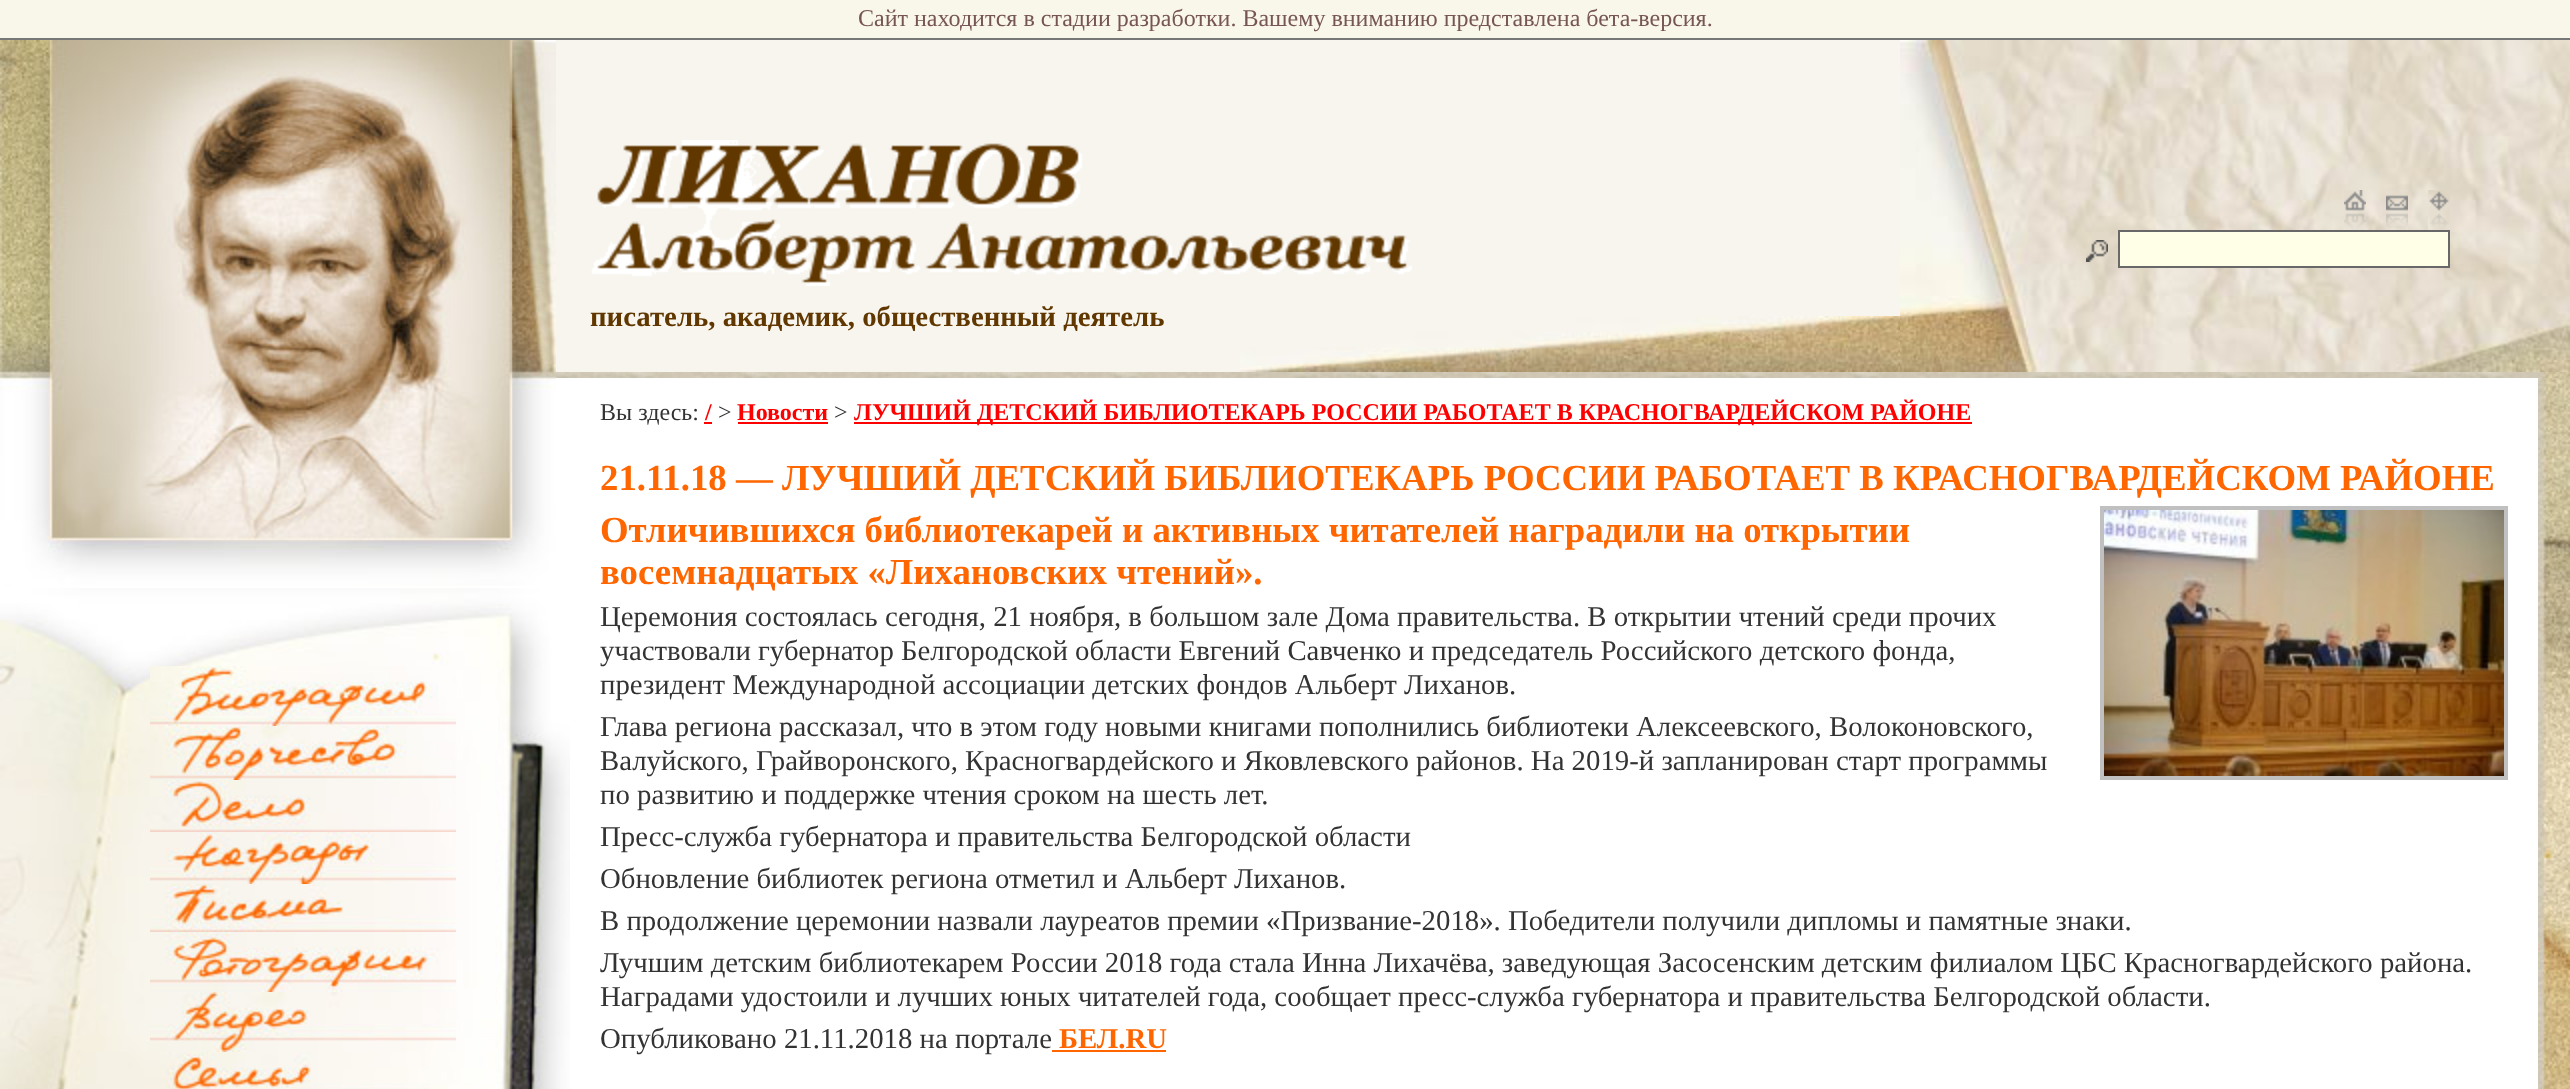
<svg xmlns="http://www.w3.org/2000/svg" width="2570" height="1089">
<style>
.a{font:24px Liberation Serif;fill:#755}
.b{font:bold 28.8px Liberation Serif;fill:#613700}
.c{font:24px Liberation Serif;fill:#333}
.d{font:bold 24px Liberation Serif;fill:#f00}
.e{font:bold 36.8px Liberation Serif;fill:#f60}
.f{font:28.8px Liberation Serif;fill:#333}
.g{font:bold 28.8px Liberation Serif;fill:#f60}
</style>
<rect width="100%" height="100%" fill="#fff"/>
<path fill="#f9f7e9" d="M0 0h2570v38H0z"/>
<path fill="#777" d="M0 38h2570v2H0z"/>
<image href="1.png" x="0" y="40" width="556" height="546"/>
<image href="2.png" x="50" y="40" width="462" height="500"/>
<path fill="#f7f5ee" d="M556 40h1344v332H556z"/>
<image href="3.png" x="591" y="140" width="821" height="146"/>
<image href="4.png" x="1240" y="316" width="660" height="56"/>
<image href="5.png" x="1900" y="40" width="670" height="332"/>
<image href="6.png" x="2344" y="190" width="22" height="40"/>
<image href="7.png" x="2386" y="190" width="22" height="40"/>
<image href="8.png" x="2428" y="190" width="22" height="40"/>
<image href="9.png" x="2086" y="240" width="22" height="22"/>
<path fill="#ffffe7" stroke="#686868" stroke-width="2" d="M2119 231h330v36H2119z"/>
<image href="10.png" x="556" y="372" width="1982" height="6"/>
<image href="11.png" x="2538" y="372" width="32" height="6"/>
<image href="12.png" x="2538" y="378" width="32" height="711"/>
<image href="13.png" x="0" y="588" width="570" height="501"/>
<image href="14.png" x="150" y="666" width="306" height="60"/>
<image href="15.png" x="150" y="726" width="306" height="54"/>
<image href="16.png" x="150" y="780" width="306" height="52"/>
<image href="17.png" x="150" y="832" width="306" height="52"/>
<image href="18.png" x="150" y="884" width="306" height="48"/>
<image href="19.png" x="150" y="932" width="306" height="60"/>
<image href="20.png" x="150" y="992" width="306" height="60"/>
<image href="21.png" x="166" y="1052" width="264" height="37"/>
<path fill="#f00" d="M704 422h8v2H704z"/>
<path fill="#f00" d="M738 422h90v2H738z"/>
<path fill="#f00" d="M854 422h1118v2H854z"/>
<path fill="none" stroke="#c0c0c0" stroke-width="4" d="M2102 508h404v270H2102z"/>
<image href="22.png" x="2104" y="510" width="400" height="266"/>
<path fill="#f60" d="M1052 1050h114v2H1052z"/>
<text class="a" x="858" y="26">Сайт находится в стадии разработки. Вашему вниманию представлена бета-версия.</text>
<text class="b" x="590" y="326">писатель, академик, общественный деятель</text>
<text class="c" x="600" y="420">Вы здесь:</text>
<text class="d" x="705" y="420">/</text>
<text class="c" x="718" y="420">&gt;</text>
<text class="d" x="737" y="420">Новости</text>
<text class="c" x="834" y="420">&gt;</text>
<text class="d" x="854" y="420">ЛУЧШИЙ ДЕТСКИЙ БИБЛИОТЕКАРЬ РОССИИ РАБОТАЕТ В КРАСНОГВАРДЕЙСКОМ РАЙОНЕ</text>
<text class="e" x="600" y="490">21.11.18 — ЛУЧШИЙ ДЕТСКИЙ БИБЛИОТЕКАРЬ РОССИИ РАБОТАЕТ В КРАСНОГВАРДЕЙСКОМ РАЙОНЕ</text>
<text class="e" x="600" y="542">Отличившихся библиотекарей и активных читателей наградили на открытии</text>
<text class="e" x="600" y="584">восемнадцатых «Лихановских чтений».</text>
<text class="f" x="600" y="626">Церемония состоялась сегодня, 21 ноября, в большом зале Дома правительства. В открытии чтений среди прочих</text>
<text class="f" x="600" y="660">участвовали губернатор Белгородской области Евгений Савченко и председатель Российского детского фонда,</text>
<text class="f" x="600" y="694">президент Международной ассоциации детских фондов Альберт Лиханов.</text>
<text class="f" x="600" y="736">Глава региона рассказал, что в этом году новыми книгами пополнились библиотеки Алексеевского, Волоконовского,</text>
<text class="f" x="600" y="770">Валуйского, Грайворонского, Красногвардейского и Яковлевского районов. На 2019-й запланирован старт программы</text>
<text class="f" x="600" y="804">по развитию и поддержке чтения сроком на шесть лет.</text>
<text class="f" x="600" y="846">Пресс-служба губернатора и правительства Белгородской области</text>
<text class="f" x="600" y="888">Обновление библиотек региона отметил и Альберт Лиханов.</text>
<text class="f" x="600" y="930">В продолжение церемонии назвали лауреатов премии «Призвание-2018». Победители получили дипломы и памятные знаки.</text>
<text class="f" x="600" y="972">Лучшим детским библиотекарем России 2018 года стала Инна Лихачёва, заведующая Засосенским детским филиалом ЦБС Красногвардейского района.</text>
<text class="f" x="600" y="1006">Наградами удостоили и лучших юных читателей года, сообщает пресс-служба губернатора и правительства Белгородской области.</text>
<text class="f" x="600" y="1048">Опубликовано 21.11.2018 на портале</text>
<text class="g" x="1059" y="1048">БЕЛ.RU</text>
</svg>
